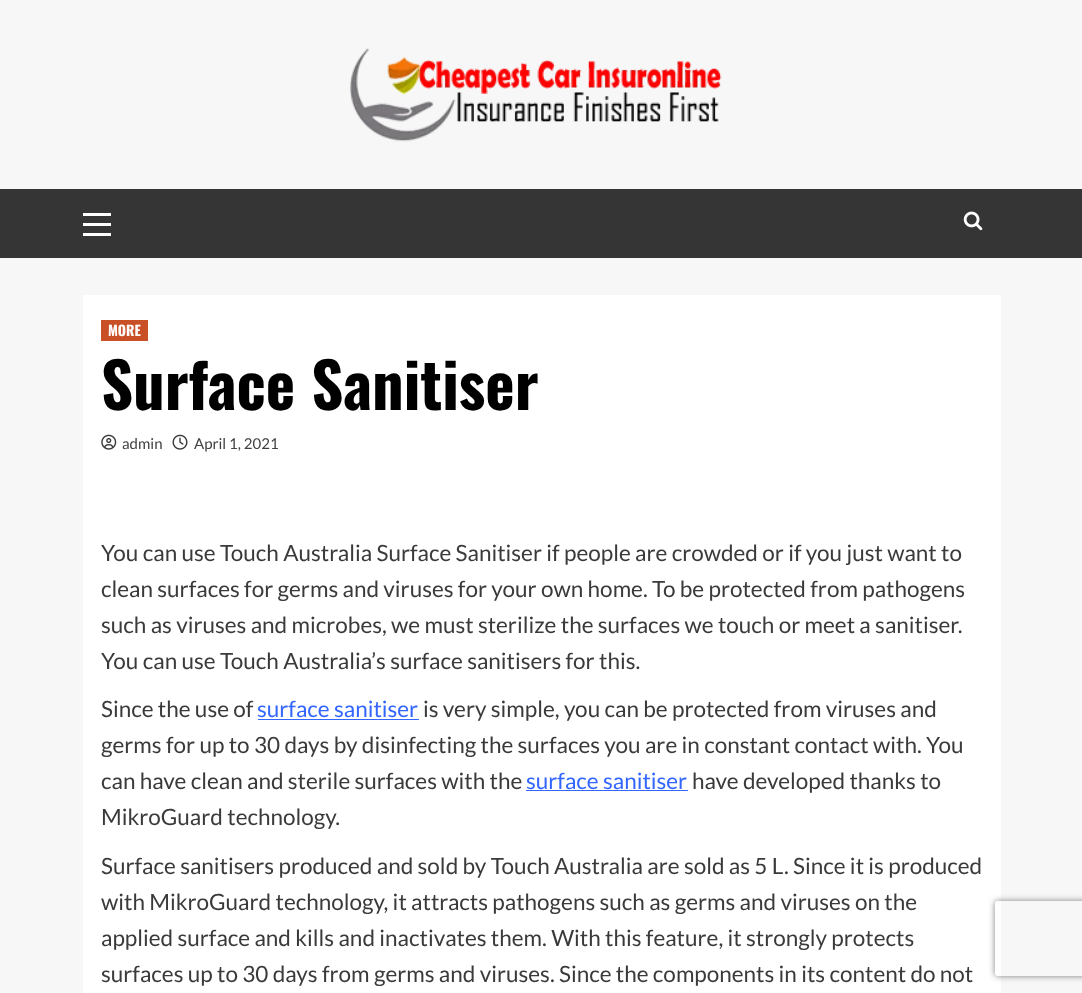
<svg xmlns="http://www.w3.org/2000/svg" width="1082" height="993">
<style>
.a{font:bold 14px Oswald;fill:#fff}
.b{font:bold 62.5px Oswald;fill:#000}
.c{font:15px Lato;fill:#404040}
.d{font:22.5px Lato;fill:#3a3a3a}
.e{font:22.5px Lato;fill:#36f}
</style>
<defs>
<clipPath id="clip1"><path d="M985 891h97v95h-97zm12.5 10h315c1.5 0 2.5 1 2.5 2.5v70c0 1.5-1 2.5-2.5 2.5h-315c-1.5 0-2.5-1-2.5-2.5v-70c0-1.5 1-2.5 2.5-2.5z" clip-rule="evenodd"/></clipPath>
</defs>
<rect width="100%" height="100%" fill="#f7f7f7"/>
<image href="1.png" x="349" y="48" width="373" height="94"/>
<path fill="#353535" d="M0 189h1082v69H0z"/>
<path fill="#fff" d="M83 223h28v3H83z"/>
<path fill="#fff" d="M83 213h28v3H83z"/>
<path fill="#fff" d="M83 233h28v3H83z"/>
<image href="2.png" x="963" y="211" width="20" height="20"/>
<path fill="#fff" d="M83 295h918v698H83z"/>
<path fill="#c84f26" d="M101 320h47v21H101z"/>
<image href="3.png" x="101" y="434" width="16" height="16"/>
<image href="4.png" x="172" y="434" width="16" height="16"/>
<path fill="#36f" d="M258 719h161v1H258z"/>
<path fill="#36f" d="M526 790h162v1H526z"/>
<g clip-path="url(#clip1)">
<rect fill="#808080" filter="blur(3px)" x="995" y="901" width="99" height="75" rx="2.5"/>
</g>
<text class="a" x="108" y="336">MORE</text>
<text class="b" x="101" y="410">Surface Sanitiser</text>
<text class="c" x="122" y="449">admin</text>
<text class="c" x="194" y="449">April 1, 2021</text>
<text class="d" x="101" y="561">You can use Touch Australia Surface Sanitiser if people are crowded or if you just want to</text>
<text class="d" x="101" y="597">clean surfaces for germs and viruses for your own home. To be protected from pathogens</text>
<text class="d" x="101" y="633">such as viruses and microbes, we must sterilize the surfaces we touch or meet a sanitiser.</text>
<text class="d" x="101" y="669">You can use Touch Australia’s surface sanitisers for this.</text>
<text class="d" x="101" y="717">Since the use of</text>
<text class="e" x="257" y="717">surface sanitiser</text>
<text class="d" x="423" y="717">is very simple, you can be protected from viruses and</text>
<text class="d" x="101" y="753">germs for up to 30 days by disinfecting the surfaces you are in constant contact with. You</text>
<text class="d" x="101" y="789">can have clean and sterile surfaces with the</text>
<text class="e" x="526" y="789">surface sanitiser</text>
<text class="d" x="692" y="789">have developed thanks to</text>
<text class="d" x="101" y="825">MikroGuard technology.</text>
<text class="d" x="101" y="874">Surface sanitisers produced and sold by Touch Australia are sold as 5 L. Since it is produced</text>
<text class="d" x="101" y="910">with MikroGuard technology, it attracts pathogens such as germs and viruses on the</text>
<text class="d" x="101" y="946">applied surface and kills and inactivates them. With this feature, it strongly protects</text>
<text class="d" x="101" y="982">surfaces up to 30 days from germs and viruses. Since the components in its content do not</text>
</svg>
